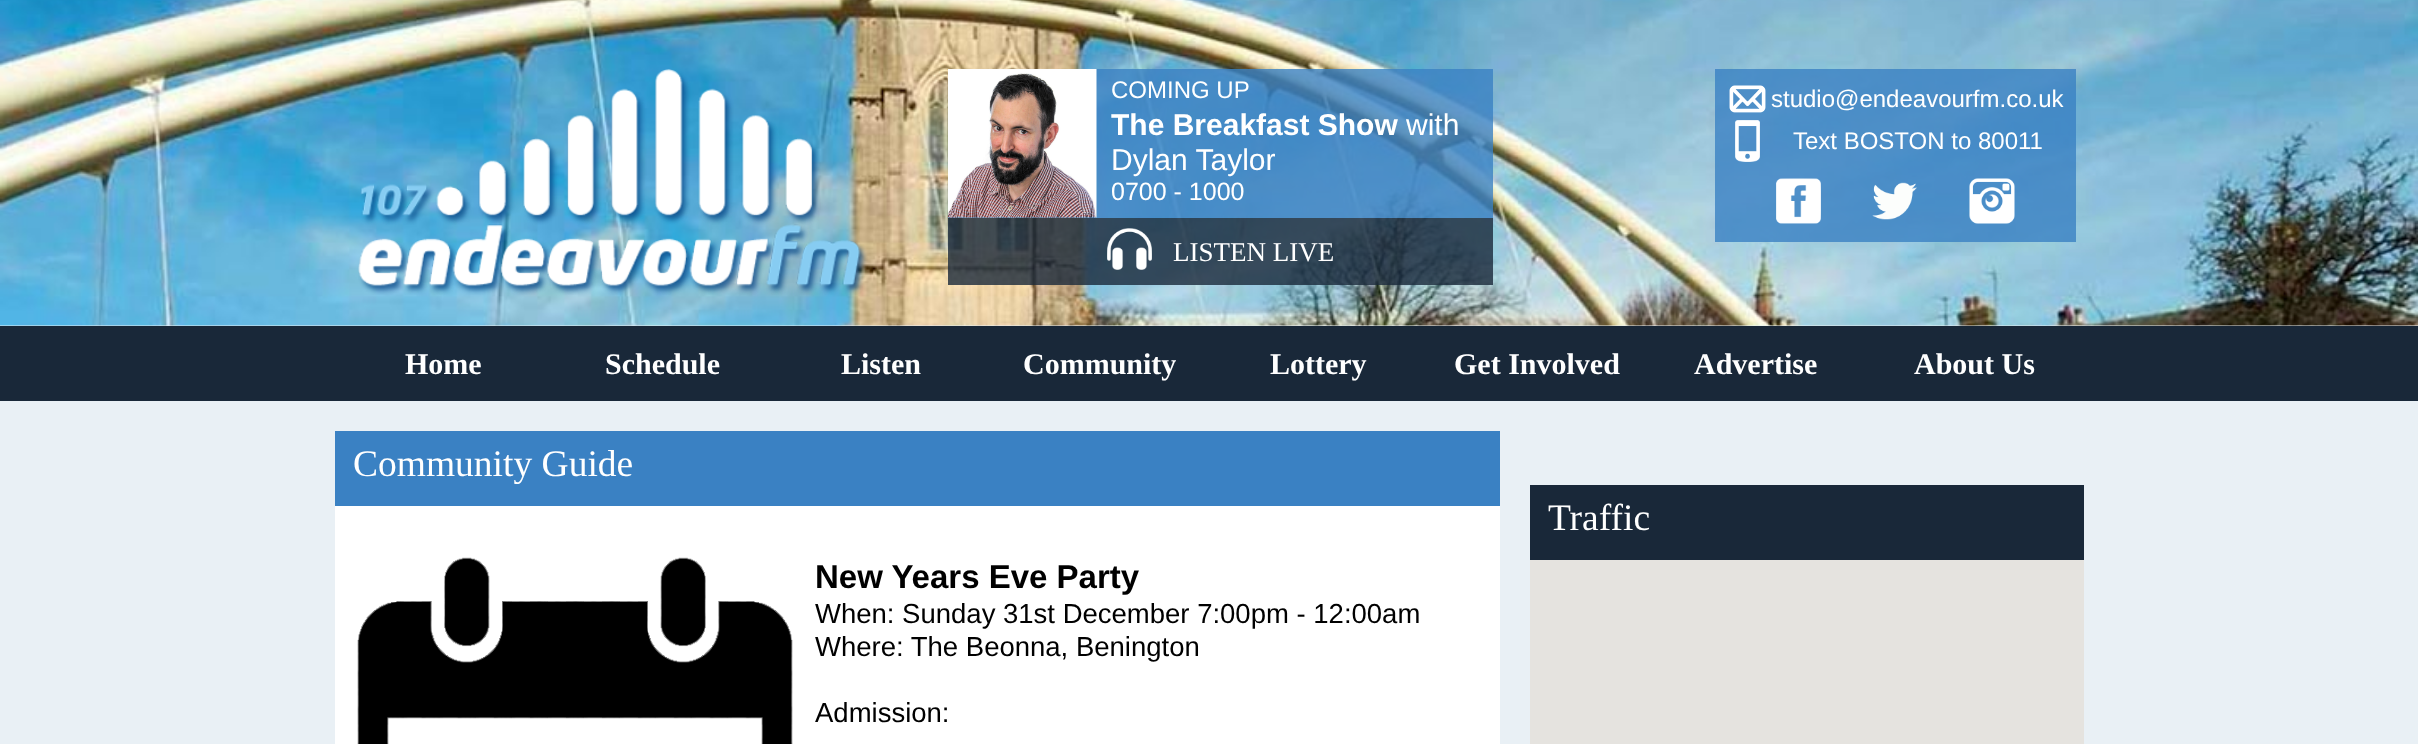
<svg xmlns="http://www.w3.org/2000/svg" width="2418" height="744">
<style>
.a{font:24px Liberation Sans;fill:#fff}
.b{font:bold 30px Liberation Sans;fill:#fff}
.c{font:30px Liberation Sans;fill:#fff}
.d{font:25px Liberation Sans;fill:#fff}
.e{font:27px Liberation Serif;fill:#fff}
.f{font:bold 30px Liberation Serif;fill:#fff}
.g{font:37.5px Liberation Serif;fill:#fff}
.h{font:bold 33px Liberation Sans;fill:#000}
.i{font:27.5px Liberation Sans;fill:#000}
</style>
<rect width="100%" height="100%" fill="#e9f0f5"/>
<image href="1.png" x="0" y="0" width="2418" height="326"/>
<image href="2.png" x="358" y="69" width="510" height="226"/>
<path fill="#3a81c3cc" d="M948 69h545v149H948z"/>
<image href="3.png" x="948" y="69" width="149" height="149"/>
<path fill="#192839cc" d="M948 218h545v67H948z"/>
<image href="4.png" x="1107" y="228" width="45" height="42"/>
<path fill="#3a81c3cc" d="M1715 69h361v173H1715z"/>
<image href="5.png" x="1729" y="85" width="37" height="28"/>
<image href="6.png" x="1735" y="120" width="25" height="42"/>
<image href="7.png" x="1776" y="178" width="45" height="46"/>
<image href="8.png" x="1872" y="182" width="45" height="38"/>
<image href="9.png" x="1969" y="178" width="46" height="46"/>
<path fill="#192839" d="M0 326h2418v75H0z"/>
<path fill="#fff" d="M335 506h1165v238H335z"/>
<path fill="#3a81c3" d="M335 431h1165v75H335z"/>
<image href="10.png" x="357" y="557" width="436" height="187"/>
<path fill="#192839" d="M1530 485h554v75H1530z"/>
<path fill="#e5e3df" d="M1530 560h554v184H1530z"/>
<text class="a" x="1111" y="98">COMING UP</text>
<text class="b" x="1111" y="135">The Breakfast Show</text>
<text class="c" x="1406" y="135">with</text>
<text class="c" x="1111" y="170">Dylan Taylor</text>
<text class="d" x="1111" y="200">0700 - 1000</text>
<text class="e" x="1173" y="261">LISTEN LIVE</text>
<text class="a" x="1771" y="107">studio@endeavourfm.co.uk</text>
<text class="a" x="1793" y="149">Text BOSTON to 80011</text>
<text class="f" x="405" y="374">Home</text>
<text class="f" x="605" y="374">Schedule</text>
<text class="f" x="841" y="374">Listen</text>
<text class="f" x="1023" y="374">Community</text>
<text class="f" x="1270" y="374">Lottery</text>
<text class="f" x="1454" y="374">Get Involved</text>
<text class="f" x="1694" y="374">Advertise</text>
<text class="f" x="1914" y="374">About Us</text>
<text class="g" x="353" y="476">Community Guide</text>
<text class="h" x="815" y="588">New Years Eve Party</text>
<text class="i" x="815" y="623">When: Sunday 31st December 7:00pm - 12:00am</text>
<text class="i" x="815" y="656">Where: The Beonna, Benington</text>
<text class="i" x="815" y="722">Admission:</text>
<text class="g" x="1548" y="530">Traffic</text>
</svg>
